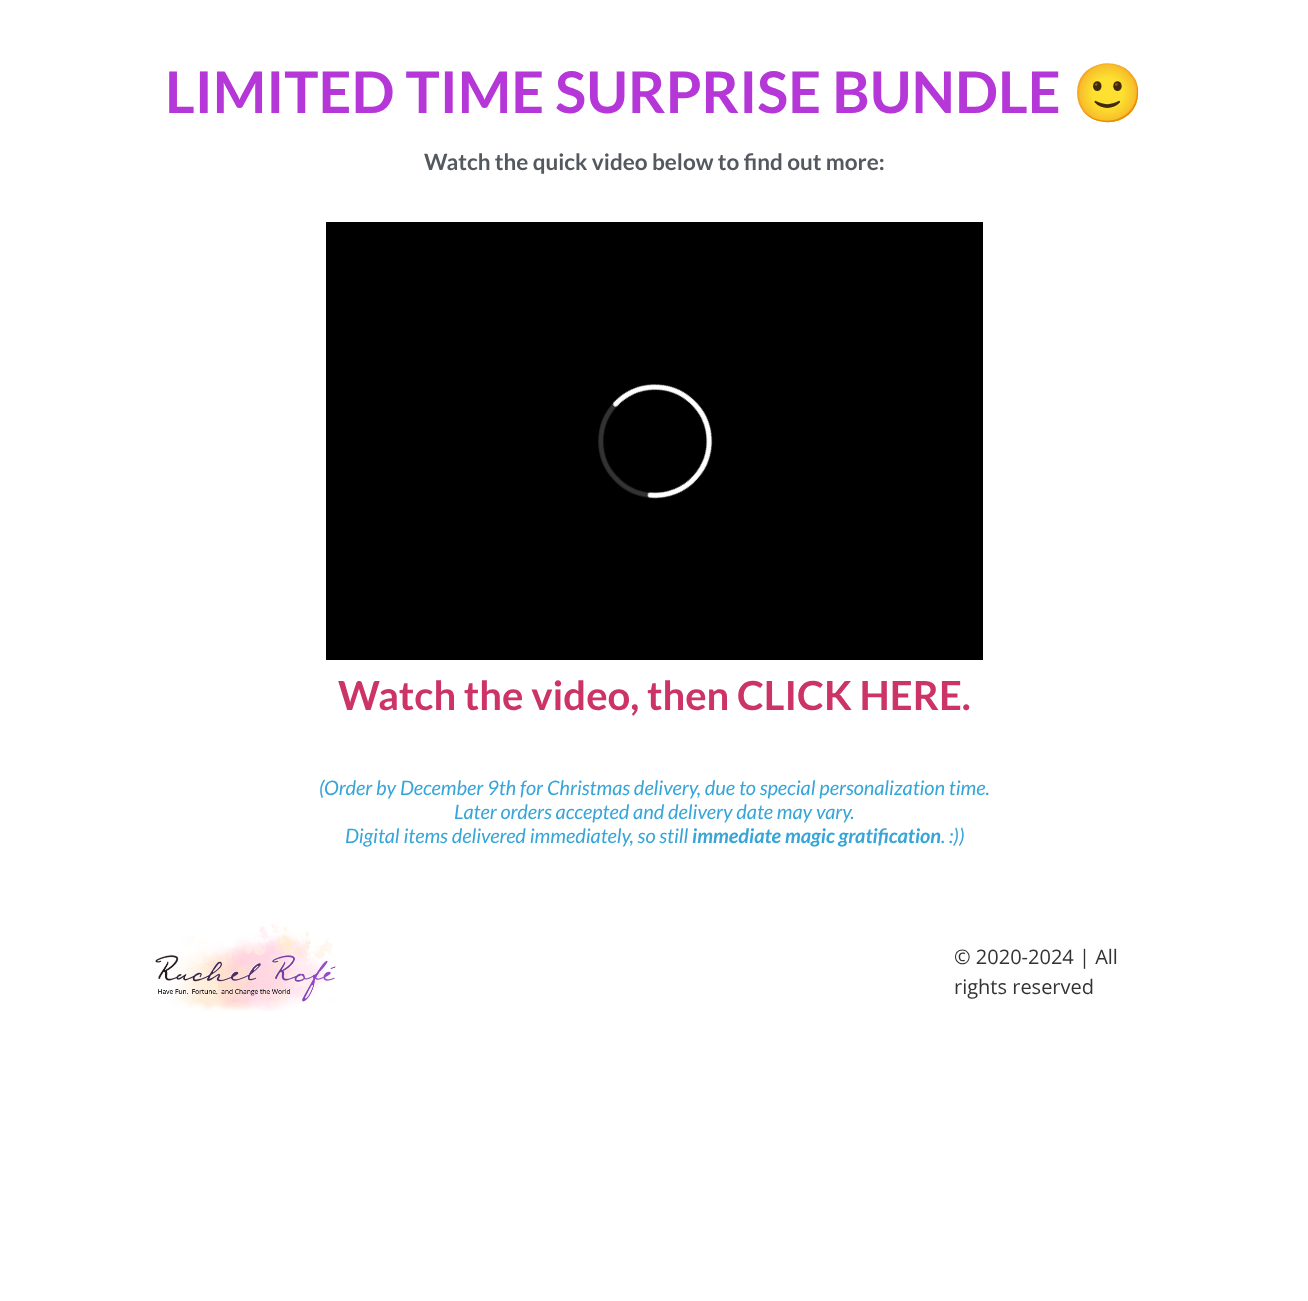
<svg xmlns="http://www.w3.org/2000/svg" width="1308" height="1301">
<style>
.a{font:bold 57.5px Lato;fill:#b537d7}
.b{font:bold 57.5px Noto Color Emoji;fill:#b537d7}
.c{font:bold 22.5px Lato;fill:#54595f}
.d{font:bold 40px Lato;fill:#c36}
.e{font:italic 20px Lato;fill:#37a5d7}
.f{font:italic bold 20px Lato;fill:#37a5d7}
.g{font:20px Open Sans;fill:#333}
</style>
<rect width="100%" height="100%" fill="#fff"/>
<path fill="#000" d="M326 499h657v161H326z"/>
<image href="1.png" x="326" y="222" width="657" height="277"/>
<image href="2.png" x="155" y="924" width="181" height="87"/>
<text class="a" x="165" y="113">LIMITED TIME SURPRISE BUNDLE</text>
<text class="b" x="1072" y="113">🙂</text>
<text class="c" x="424" y="170">Watch the quick video below to find out more:</text>
<text class="d" x="338" y="710">Watch the video, then CLICK HERE.</text>
<text class="e" x="319" y="795">(Order by December 9th for Christmas delivery, due to special personalization time.</text>
<text class="e" x="454" y="819">Later orders accepted and delivery date may vary.</text>
<text class="e" x="345" y="843">Digital items delivered immediately, so still</text>
<text class="f" x="692" y="843">immediate magic gratification</text>
<text class="e" x="941" y="843">. :))</text>
<text class="g" x="954" y="964">© 2020-2024 | All</text>
<text class="g" x="954" y="994">rights reserved</text>
</svg>
